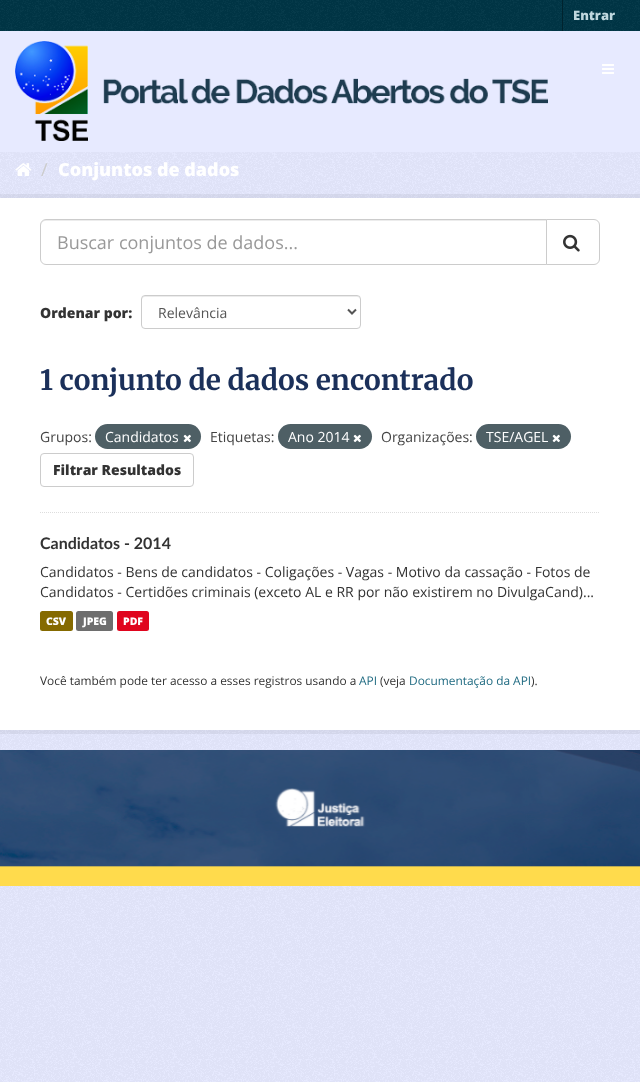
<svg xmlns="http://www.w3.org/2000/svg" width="640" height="1082">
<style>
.a{font:800 13px Open Sans;fill:#bfd7de}
.b{font:18px Open Sans;fill:#ccc}
.c{font:800 18px Open Sans;fill:#fff}
.d{font:18px Open Sans;fill:#999}
.e{font:800 14px Open Sans;fill:#333}
.f{font:14px Open Sans;fill:#555}
.g{font:bold 28px Merriweather;fill:#1b305a}
.h{font:14px Open Sans;fill:#444}
.i{font:14px Open Sans;fill:#fff}
.j{font:bold 16px Lato;fill:#333}
.k{font:14px Open Sans;fill:#333}
.l{font:800 10.5px Open Sans;fill:#fff}
.m{font:11.9px Open Sans;fill:#333}
.n{font:11.9px Open Sans;fill:#206b82}
</style>
<rect width="100%" height="100%" fill="#e7eaff"/>
<image href="1.png" x="0" y="152" width="640" height="930"/>
<path fill="#003647" d="M0 0h640v31H0z"/>
<image href="2.png" x="0" y="0" width="640" height="31"/>
<path fill="#00232e" d="M562 0h1v31H562z"/>
<image href="3.png" x="15" y="41" width="533" height="100"/>
<image href="4.png" x="602" y="64" width="12" height="10"/>
<image href="5.png" x="15" y="163" width="17" height="13"/>
<path fill="none" stroke="#0000000d" stroke-width="4" d="M-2 196h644v536H-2z"/>
<path fill="#fff" d="M0 198h640v532H0z"/>
<path fill="none" stroke="#ddd" stroke-dasharray="1 1" d="M40 512.5h560"/>
<path fill="#ececec" d="M46 221h500v-1h-500c-3 0-5 2-5 5v1c0-3 2-5 5-5z"/>
<path fill="none" stroke="#ccc" d="M46 219.5h500.5v45h-500.5c-3 0-5.5-2.5-5.5-5.5v-34c0-3 2.5-5.5 5.5-5.5z"/>
<path fill="#fff" stroke="#ccc" d="M546.5 219.5h47.5c3 0 5.5 2.5 5.5 5.5v34c0 3-2.5 5.5-5.5 5.5h-47.5z"/>
<image href="6.png" x="563" y="234" width="17" height="18"/>
<path fill="#ececec" d="M145 297h212c2 0 3 1 3 3v-1c0-2-1-3-3-3h-212c-2 0-3 1-3 3v1c0-2 1-3 3-3z"/>
<rect fill="none" stroke="#ccc" x="141.5" y="295.5" width="219" height="33" rx="3.5"/>
<path fill="none" stroke="#555" stroke-width="2" d="M348 309.5l4 4l4-4"/>
<rect fill="#4e5f65" x="95" y="424" width="106" height="25" rx="12.5"/>
<image href="7.png" x="183" y="434" width="8" height="9"/>
<rect fill="#4e5f65" x="278" y="424" width="94" height="25" rx="12.5"/>
<image href="7.png" x="353" y="434" width="8" height="9"/>
<rect fill="#4e5f65" x="476" y="424" width="95" height="25" rx="12.5"/>
<image href="7.png" x="552" y="434" width="8" height="9"/>
<rect fill="none" stroke="#ccc" x="40.5" y="453.5" width="153" height="33" rx="3.5"/>
<rect fill="#856a00" x="40" y="611" width="33" height="20" rx="2.5"/>
<rect fill="#6e6e6e" x="76" y="611" width="37" height="20" rx="2.5"/>
<rect fill="#e0051e" x="117" y="611" width="32" height="20" rx="2.5"/>
<image href="8.png" x="0" y="750" width="640" height="136"/>
<text class="a" x="573" y="20">Entrar</text>
<text class="b" x="41" y="176">/</text>
<text class="c" x="58" y="176">Conjuntos de dados</text>
<text class="d" x="57" y="249">Buscar conjuntos de dados...</text>
<text class="e" x="40" y="318">Ordenar por:</text>
<text class="f" x="158" y="318">Relevância</text>
<text class="g" x="40" y="390">1 conjunto de dados encontrado</text>
<text class="h" x="40" y="442">Grupos:</text>
<text class="i" x="105" y="442">Candidatos</text>
<text class="h" x="210" y="442">Etiquetas:</text>
<text class="i" x="288" y="442">Ano 2014</text>
<text class="h" x="381" y="442">Organizações:</text>
<text class="i" x="486" y="442">TSE/AGEL</text>
<text class="e" x="53" y="475">Filtrar Resultados</text>
<text class="j" x="40" y="549">Candidatos - 2014</text>
<text class="k" x="40" y="577">Candidatos - Bens de candidatos - Coligações - Vagas - Motivo da cassação - Fotos de</text>
<text class="k" x="40" y="597">Candidatos - Certidões criminais (exceto AL e RR por não existirem no DivulgaCand)...</text>
<text class="l" x="46" y="625">CSV</text>
<text class="l" x="83" y="625">JPEG</text>
<text class="l" x="123" y="625">PDF</text>
<text class="m" x="40" y="685">Você também pode ter acesso a esses registros usando a</text>
<text class="n" x="359" y="685">API</text>
<text class="m" x="380" y="685">(veja</text>
<text class="n" x="409" y="685">Documentação da API</text>
<text class="m" x="531" y="685">).</text>
</svg>
